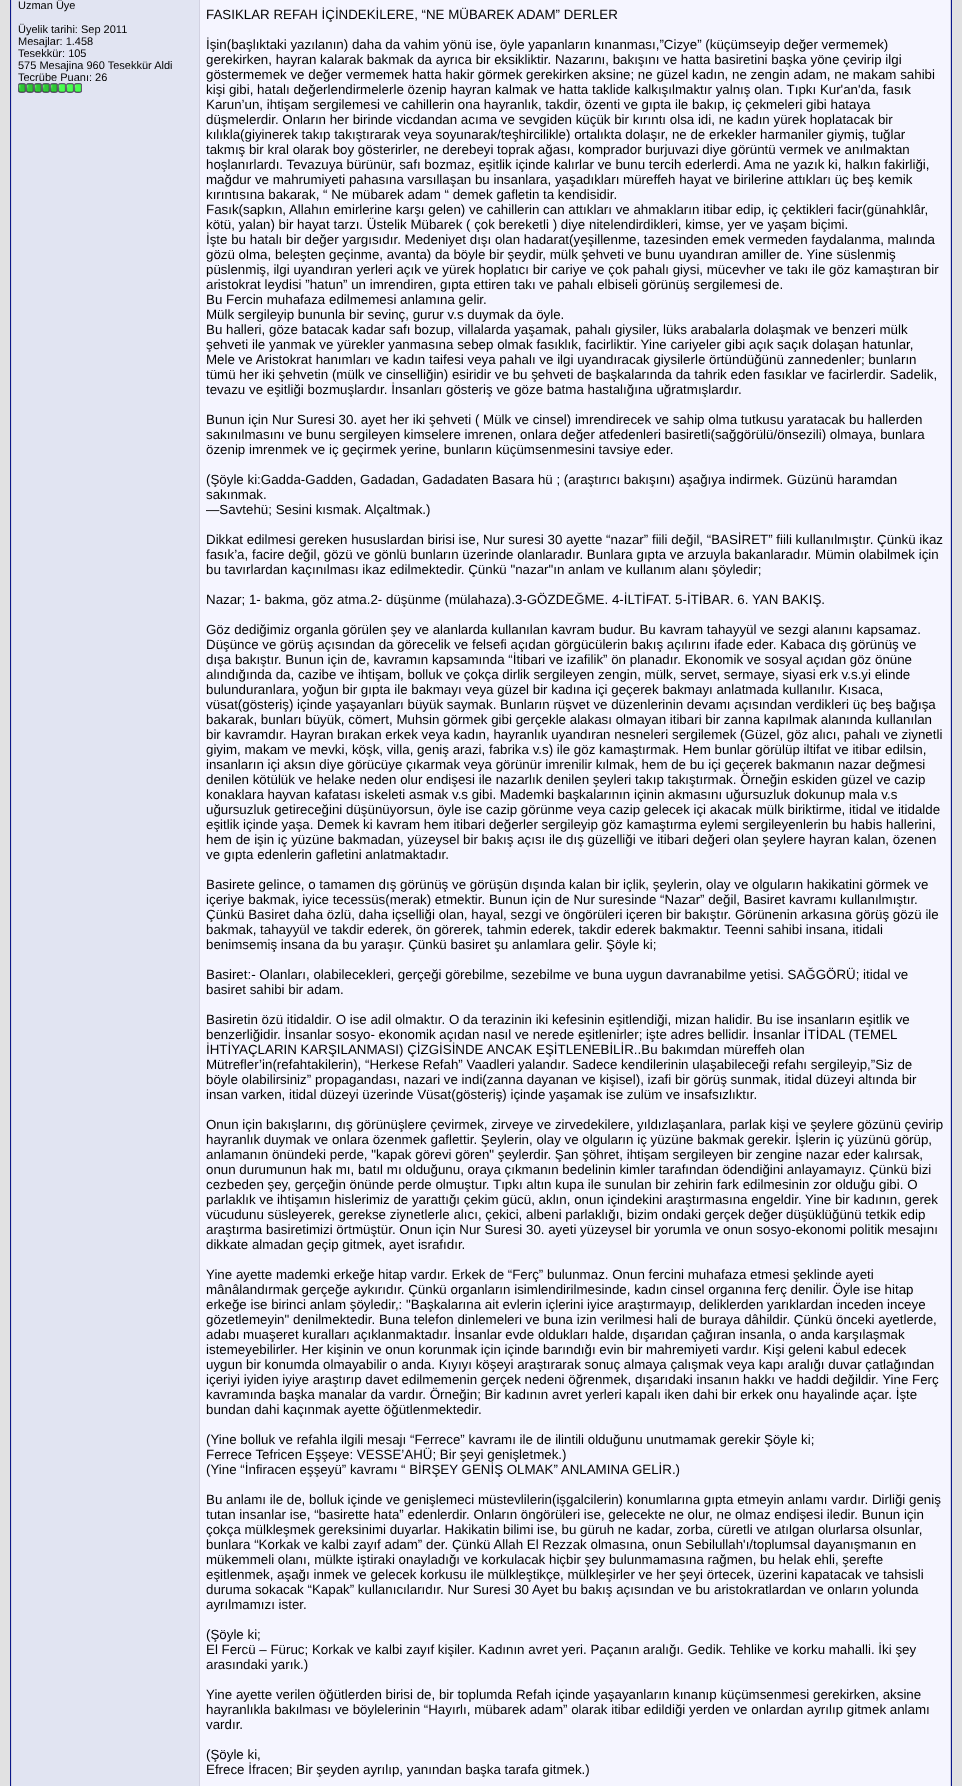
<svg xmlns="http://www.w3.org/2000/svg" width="962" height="1786">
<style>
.a{font:11px Liberation Sans;fill:#000}
.b{font:13.33px Liberation Sans;fill:#000}
</style>
<rect width="100%" height="100%" fill="#e1e1e2"/>
<path fill="none" stroke="#0b198c" d="M10.5 -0.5h941v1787H10.5z"/>
<path fill="#e1e4f2" d="M12 0h187v1786H12z"/>
<path fill="#d1d1e1" d="M199 0h1v1786H199z"/>
<path fill="#d1d1e1" d="M11 0h1v1786H11z"/>
<image href="1.png" x="18" y="83" width="8" height="10"/>
<image href="1.png" x="26" y="83" width="8" height="10"/>
<image href="1.png" x="34" y="83" width="8" height="10"/>
<image href="1.png" x="42" y="83" width="8" height="10"/>
<image href="1.png" x="50" y="83" width="8" height="10"/>
<image href="2.png" x="58" y="83" width="8" height="10"/>
<image href="2.png" x="66" y="83" width="8" height="10"/>
<image href="2.png" x="74" y="83" width="8" height="10"/>
<path fill="#f5f5ff" d="M200 0h750v1786H200z"/>
<path fill="#d1d1e1" d="M950 0h1v1786H950z"/>
<text class="a" x="18" y="9">Uzman Üye</text>
<text class="a" x="18" y="33">Üyelik tarihi: Sep 2011</text>
<text class="a" x="18" y="45">Mesajlar: 1.458</text>
<text class="a" x="18" y="57">Tesekkür: 105</text>
<text class="a" x="18" y="69">575 Mesajina 960 Tesekkür Aldi</text>
<text class="a" x="18" y="81">Tecrübe Puanı: 26</text>
<text class="b" x="206" y="19">FASIKLAR REFAH İÇİNDEKİLERE, “NE MÜBAREK ADAM” DERLER</text>
<text class="b" x="206" y="49">İşin(başlıktaki yazılanın) daha da vahim yönü ise, öyle yapanların kınanması,”Cizye” (küçümseyip değer vermemek)</text>
<text class="b" x="206" y="64">gerekirken, hayran kalarak bakmak da ayrıca bir eksikliktir. Nazarını, bakışını ve hatta basiretini başka yöne çevirip ilgi</text>
<text class="b" x="206" y="79">göstermemek ve değer vermemek hatta hakir görmek gerekirken aksine; ne güzel kadın, ne zengin adam, ne makam sahibi</text>
<text class="b" x="206" y="94">kişi gibi, hatalı değerlendirmelerle özenip hayran kalmak ve hatta taklide kalkışılmaktır yalnış olan. Tıpkı Kur'an'da, fasık</text>
<text class="b" x="206" y="109">Karun’un, ihtişam sergilemesi ve cahillerin ona hayranlık, takdir, özenti ve gıpta ile bakıp, iç çekmeleri gibi hataya</text>
<text class="b" x="206" y="124">düşmelerdir. Onların her birinde vicdandan acıma ve sevgiden küçük bir kırıntı olsa idi, ne kadın yürek hoplatacak bir</text>
<text class="b" x="206" y="139">kılıkla(giyinerek takıp takıştırarak veya soyunarak/teşhircilikle) ortalıkta dolaşır, ne de erkekler harmaniler giymiş, tuğlar</text>
<text class="b" x="206" y="154">takmış bir kral olarak boy gösterirler, ne derebeyi toprak ağası, komprador burjuvazi diye görüntü vermek ve anılmaktan</text>
<text class="b" x="206" y="169">hoşlanırlardı. Tevazuya bürünür, safı bozmaz, eşitlik içinde kalırlar ve bunu tercih ederlerdi. Ama ne yazık ki, halkın fakirliği,</text>
<text class="b" x="206" y="184">mağdur ve mahrumiyeti pahasına varsıllaşan bu insanlara, yaşadıkları müreffeh hayat ve birilerine attıkları üç beş kemik</text>
<text class="b" x="206" y="199">kırıntısına bakarak, “ Ne mübarek adam “ demek gafletin ta kendisidir.</text>
<text class="b" x="206" y="214">Fasık(sapkın, Allahın emirlerine karşı gelen) ve cahillerin can attıkları ve ahmakların itibar edip, iç çektikleri facir(günahklâr,</text>
<text class="b" x="206" y="229">kötü, yalan) bir hayat tarzı. Üstelik Mübarek ( çok bereketli ) diye nitelendirdikleri, kimse, yer ve yaşam biçimi.</text>
<text class="b" x="206" y="244">İşte bu hatalı bir değer yargısıdır. Medeniyet dışı olan hadarat(yeşillenme, tazesinden emek vermeden faydalanma, malında</text>
<text class="b" x="206" y="259">gözü olma, beleşten geçinme, avanta) da böyle bir şeydir, mülk şehveti ve bunu uyandıran amiller de. Yine süslenmiş</text>
<text class="b" x="206" y="274">püslenmiş, ilgi uyandıran yerleri açık ve yürek hoplatıcı bir cariye ve çok pahalı giysi, mücevher ve takı ile göz kamaştıran bir</text>
<text class="b" x="206" y="289">aristokrat leydisi ”hatun” un imrendiren, gıpta ettiren takı ve pahalı elbiseli görünüş sergilemesi de.</text>
<text class="b" x="206" y="304">Bu Fercin muhafaza edilmemesi anlamına gelir.</text>
<text class="b" x="206" y="319">Mülk sergileyip bununla bir sevinç, gurur v.s duymak da öyle.</text>
<text class="b" x="206" y="334">Bu halleri, göze batacak kadar safı bozup, villalarda yaşamak, pahalı giysiler, lüks arabalarla dolaşmak ve benzeri mülk</text>
<text class="b" x="206" y="349">şehveti ile yanmak ve yürekler yanmasına sebep olmak fasıklık, facirliktir. Yine cariyeler gibi açık saçık dolaşan hatunlar,</text>
<text class="b" x="206" y="364">Mele ve Aristokrat hanımları ve kadın taifesi veya pahalı ve ilgi uyandıracak giysilerle örtündüğünü zannedenler; bunların</text>
<text class="b" x="206" y="379">tümü her iki şehvetin (mülk ve cinselliğin) esiridir ve bu şehveti de başkalarında da tahrik eden fasıklar ve facirlerdir. Sadelik,</text>
<text class="b" x="206" y="394">tevazu ve eşitliği bozmuşlardır. İnsanları gösteriş ve göze batma hastalığına uğratmışlardır.</text>
<text class="b" x="206" y="424">Bunun için Nur Suresi 30. ayet her iki şehveti ( Mülk ve cinsel) imrendirecek ve sahip olma tutkusu yaratacak bu hallerden</text>
<text class="b" x="206" y="439">sakınılmasını ve bunu sergileyen kimselere imrenen, onlara değer atfedenleri basiretli(sağgörülü/önsezili) olmaya, bunlara</text>
<text class="b" x="206" y="454">özenip imrenmek ve iç geçirmek yerine, bunların küçümsenmesini tavsiye eder.</text>
<text class="b" x="206" y="484">(Şöyle ki:Gadda-Gadden, Gadadan, Gadadaten Basara hü ; (araştırıcı bakışını) aşağıya indirmek. Güzünü haramdan</text>
<text class="b" x="206" y="499">sakınmak.</text>
<text class="b" x="206" y="514">—Savtehü; Sesini kısmak. Alçaltmak.)</text>
<text class="b" x="206" y="544">Dikkat edilmesi gereken hususlardan birisi ise, Nur suresi 30 ayette “nazar” fiili değil, “BASİRET” fiili kullanılmıştır. Çünkü ikaz</text>
<text class="b" x="206" y="559">fasık’a, facire değil, gözü ve gönlü bunların üzerinde olanlaradır. Bunlara gıpta ve arzuyla bakanlaradır. Mümin olabilmek için</text>
<text class="b" x="206" y="574">bu tavırlardan kaçınılması ikaz edilmektedir. Çünkü "nazar"ın anlam ve kullanım alanı şöyledir;</text>
<text class="b" x="206" y="604">Nazar; 1- bakma, göz atma.2- düşünme (mülahaza).3-GÖZDEĞME. 4-İLTİFAT. 5-İTİBAR. 6. YAN BAKIŞ.</text>
<text class="b" x="206" y="634">Göz dediğimiz organla görülen şey ve alanlarda kullanılan kavram budur. Bu kavram tahayyül ve sezgi alanını kapsamaz.</text>
<text class="b" x="206" y="649">Düşünce ve görüş açısından da görecelik ve felsefi açıdan görgücülerin bakış açılırını ifade eder. Kabaca dış görünüş ve</text>
<text class="b" x="206" y="664">dışa bakıştır. Bunun için de, kavramın kapsamında “İtibari ve izafilik” ön planadır. Ekonomik ve sosyal açıdan göz önüne</text>
<text class="b" x="206" y="679">alındığında da, cazibe ve ihtişam, bolluk ve çokça dirlik sergileyen zengin, mülk, servet, sermaye, siyasi erk v.s.yi elinde</text>
<text class="b" x="206" y="694">bulunduranlara, yoğun bir gıpta ile bakmayı veya güzel bir kadına içi geçerek bakmayı anlatmada kullanılır. Kısaca,</text>
<text class="b" x="206" y="709">vüsat(gösteriş) içinde yaşayanları büyük saymak. Bunların rüşvet ve düzenlerinin devamı açısından verdikleri üç beş bağışa</text>
<text class="b" x="206" y="724">bakarak, bunları büyük, cömert, Muhsin görmek gibi gerçekle alakası olmayan itibari bir zanna kapılmak alanında kullanılan</text>
<text class="b" x="206" y="739">bir kavramdır. Hayran bırakan erkek veya kadın, hayranlık uyandıran nesneleri sergilemek (Güzel, göz alıcı, pahalı ve ziynetli</text>
<text class="b" x="206" y="754">giyim, makam ve mevki, köşk, villa, geniş arazi, fabrika v.s) ile göz kamaştırmak. Hem bunlar görülüp iltifat ve itibar edilsin,</text>
<text class="b" x="206" y="769">insanların içi aksın diye görücüye çıkarmak veya görünür imrenilir kılmak, hem de bu içi geçerek bakmanın nazar değmesi</text>
<text class="b" x="206" y="784">denilen kötülük ve helake neden olur endişesi ile nazarlık denilen şeyleri takıp takıştırmak. Örneğin eskiden güzel ve cazip</text>
<text class="b" x="206" y="799">konaklara hayvan kafatası iskeleti asmak v.s gibi. Mademki başkalarının içinin akmasını uğursuzluk dokunup mala v.s</text>
<text class="b" x="206" y="814">uğursuzluk getireceğini düşünüyorsun, öyle ise cazip görünme veya cazip gelecek içi akacak mülk biriktirme, itidal ve itidalde</text>
<text class="b" x="206" y="829">eşitlik içinde yaşa. Demek ki kavram hem itibari değerler sergileyip göz kamaştırma eylemi sergileyenlerin bu habis hallerini,</text>
<text class="b" x="206" y="844">hem de işin iç yüzüne bakmadan, yüzeysel bir bakış açısı ile dış güzelliği ve itibari değeri olan şeylere hayran kalan, özenen</text>
<text class="b" x="206" y="859">ve gıpta edenlerin gafletini anlatmaktadır.</text>
<text class="b" x="206" y="889">Basirete gelince, o tamamen dış görünüş ve görüşün dışında kalan bir içlik, şeylerin, olay ve olguların hakikatini görmek ve</text>
<text class="b" x="206" y="904">içeriye bakmak, iyice tecessüs(merak) etmektir. Bunun için de Nur suresinde “Nazar” değil, Basiret kavramı kullanılmıştır.</text>
<text class="b" x="206" y="919">Çünkü Basiret daha özlü, daha içselliği olan, hayal, sezgi ve öngörüleri içeren bir bakıştır. Görünenin arkasına görüş gözü ile</text>
<text class="b" x="206" y="934">bakmak, tahayyül ve takdir ederek, ön görerek, tahmin ederek, takdir ederek bakmaktır. Teenni sahibi insana, itidali</text>
<text class="b" x="206" y="949">benimsemiş insana da bu yaraşır. Çünkü basiret şu anlamlara gelir. Şöyle ki;</text>
<text class="b" x="206" y="979">Basiret:- Olanları, olabilecekleri, gerçeği görebilme, sezebilme ve buna uygun davranabilme yetisi. SAĞGÖRÜ; itidal ve</text>
<text class="b" x="206" y="994">basiret sahibi bir adam.</text>
<text class="b" x="206" y="1024">Basiretin özü itidaldir. O ise adil olmaktır. O da terazinin iki kefesinin eşitlendiği, mizan halidir. Bu ise insanların eşitlik ve</text>
<text class="b" x="206" y="1039">benzerliğidir. İnsanlar sosyo- ekonomik açıdan nasıl ve nerede eşitlenirler; işte adres bellidir. İnsanlar İTİDAL (TEMEL</text>
<text class="b" x="206" y="1054">İHTİYAÇLARIN KARŞILANMASI) ÇİZGİSİNDE ANCAK EŞİTLENEBİLİR..Bu bakımdan müreffeh olan</text>
<text class="b" x="206" y="1069">Mütrefler’in(refahtakilerin), “Herkese Refah” Vaadleri yalandır. Sadece kendilerinin ulaşabileceği refahı sergileyip,”Siz de</text>
<text class="b" x="206" y="1084">böyle olabilirsiniz” propagandası, nazari ve indi(zanna dayanan ve kişisel), izafi bir görüş sunmak, itidal düzeyi altında bir</text>
<text class="b" x="206" y="1099">insan varken, itidal düzeyi üzerinde Vüsat(gösteriş) içinde yaşamak ise zulüm ve insafsızlıktır.</text>
<text class="b" x="206" y="1129">Onun için bakışlarını, dış görünüşlere çevirmek, zirveye ve zirvedekilere, yıldızlaşanlara, parlak kişi ve şeylere gözünü çevirip</text>
<text class="b" x="206" y="1144">hayranlık duymak ve onlara özenmek gaflettir. Şeylerin, olay ve olguların iç yüzüne bakmak gerekir. İşlerin iç yüzünü görüp,</text>
<text class="b" x="206" y="1159">anlamanın önündeki perde, "kapak görevi gören" şeylerdir. Şan şöhret, ihtişam sergileyen bir zengine nazar eder kalırsak,</text>
<text class="b" x="206" y="1174">onun durumunun hak mı, batıl mı olduğunu, oraya çıkmanın bedelinin kimler tarafından ödendiğini anlayamayız. Çünkü bizi</text>
<text class="b" x="206" y="1189">cezbeden şey, gerçeğin önünde perde olmuştur. Tıpkı altın kupa ile sunulan bir zehirin fark edilmesinin zor olduğu gibi. O</text>
<text class="b" x="206" y="1204">parlaklık ve ihtişamın hislerimiz de yarattığı çekim gücü, aklın, onun içindekini araştırmasına engeldir. Yine bir kadının, gerek</text>
<text class="b" x="206" y="1219">vücudunu süsleyerek, gerekse ziynetlerle alıcı, çekici, albeni parlaklığı, bizim ondaki gerçek değer düşüklüğünü tetkik edip</text>
<text class="b" x="206" y="1234">araştırma basiretimizi örtmüştür. Onun için Nur Suresi 30. ayeti yüzeysel bir yorumla ve onun sosyo-ekonomi politik mesajını</text>
<text class="b" x="206" y="1249">dikkate almadan geçip gitmek, ayet israfıdır.</text>
<text class="b" x="206" y="1279">Yine ayette mademki erkeğe hitap vardır. Erkek de “Ferç” bulunmaz. Onun fercini muhafaza etmesi şeklinde ayeti</text>
<text class="b" x="206" y="1294">mânâlandırmak gerçeğe aykırıdır. Çünkü organların isimlendirilmesinde, kadın cinsel organına ferç denilir. Öyle ise hitap</text>
<text class="b" x="206" y="1309">erkeğe ise birinci anlam şöyledir,: "Başkalarına ait evlerin içlerini iyice araştırmayıp, deliklerden yarıklardan inceden inceye</text>
<text class="b" x="206" y="1324">gözetlemeyin" denilmektedir. Buna telefon dinlemeleri ve buna izin verilmesi hali de buraya dâhildir. Çünkü önceki ayetlerde,</text>
<text class="b" x="206" y="1339">adabı muaşeret kuralları açıklanmaktadır. İnsanlar evde oldukları halde, dışarıdan çağıran insanla, o anda karşılaşmak</text>
<text class="b" x="206" y="1354">istemeyebilirler. Her kişinin ve onun korunmak için içinde barındığı evin bir mahremiyeti vardır. Kişi geleni kabul edecek</text>
<text class="b" x="206" y="1369">uygun bir konumda olmayabilir o anda. Kıyıyı köşeyi araştırarak sonuç almaya çalışmak veya kapı aralığı duvar çatlağından</text>
<text class="b" x="206" y="1384">içeriyi iyiden iyiye araştırıp davet edilmemenin gerçek nedeni öğrenmek, dışarıdaki insanın hakkı ve haddi değildir. Yine Ferç</text>
<text class="b" x="206" y="1399">kavramında başka manalar da vardır. Örneğin; Bir kadının avret yerleri kapalı iken dahi bir erkek onu hayalinde açar. İşte</text>
<text class="b" x="206" y="1414">bundan dahi kaçınmak ayette öğütlenmektedir.</text>
<text class="b" x="206" y="1444">(Yine bolluk ve refahla ilgili mesajı “Ferrece” kavramı ile de ilintili olduğunu unutmamak gerekir Şöyle ki;</text>
<text class="b" x="206" y="1459">Ferrece Tefricen Eşşeye: VESSE’AHÜ; Bir şeyi genişletmek.)</text>
<text class="b" x="206" y="1474">(Yine “İnfiracen eşşeyü” kavramı “ BİRŞEY GENİŞ OLMAK” ANLAMINA GELİR.)</text>
<text class="b" x="206" y="1504">Bu anlamı ile de, bolluk içinde ve genişlemeci müstevlilerin(işgalcilerin) konumlarına gıpta etmeyin anlamı vardır. Dirliği geniş</text>
<text class="b" x="206" y="1519">tutan insanlar ise, “basirette hata” edenlerdir. Onların öngörüleri ise, gelecekte ne olur, ne olmaz endişesi iledir. Bunun için</text>
<text class="b" x="206" y="1534">çokça mülkleşmek gereksinimi duyarlar. Hakikatin bilimi ise, bu güruh ne kadar, zorba, cüretli ve atılgan olurlarsa olsunlar,</text>
<text class="b" x="206" y="1549">bunlara “Korkak ve kalbi zayıf adam” der. Çünkü Allah El Rezzak olmasına, onun Sebilullah'ı/toplumsal dayanışmanın en</text>
<text class="b" x="206" y="1564">mükemmeli olanı, mülkte iştiraki onayladığı ve korkulacak hiçbir şey bulunmamasına rağmen, bu helak ehli, şerefte</text>
<text class="b" x="206" y="1579">eşitlenmek, aşağı inmek ve gelecek korkusu ile mülkleştikçe, mülkleşirler ve her şeyi örtecek, üzerini kapatacak ve tahsisli</text>
<text class="b" x="206" y="1594">duruma sokacak “Kapak” kullanıcılarıdır. Nur Suresi 30 Ayet bu bakış açısından ve bu aristokratlardan ve onların yolunda</text>
<text class="b" x="206" y="1609">ayrılmamızı ister.</text>
<text class="b" x="206" y="1639">(Şöyle ki;</text>
<text class="b" x="206" y="1654">El Fercü – Füruc; Korkak ve kalbi zayıf kişiler. Kadının avret yeri. Paçanın aralığı. Gedik. Tehlike ve korku mahalli. İki şey</text>
<text class="b" x="206" y="1669">arasındaki yarık.)</text>
<text class="b" x="206" y="1699">Yine ayette verilen öğütlerden birisi de, bir toplumda Refah içinde yaşayanların kınanıp küçümsenmesi gerekirken, aksine</text>
<text class="b" x="206" y="1714">hayranlıkla bakılması ve böylelerinin “Hayırlı, mübarek adam” olarak itibar edildiği yerden ve onlardan ayrılıp gitmek anlamı</text>
<text class="b" x="206" y="1729">vardır.</text>
<text class="b" x="206" y="1759">(Şöyle ki,</text>
<text class="b" x="206" y="1774">Efrece İfracen; Bir şeyden ayrılıp, yanından başka tarafa gitmek.)</text>
</svg>
